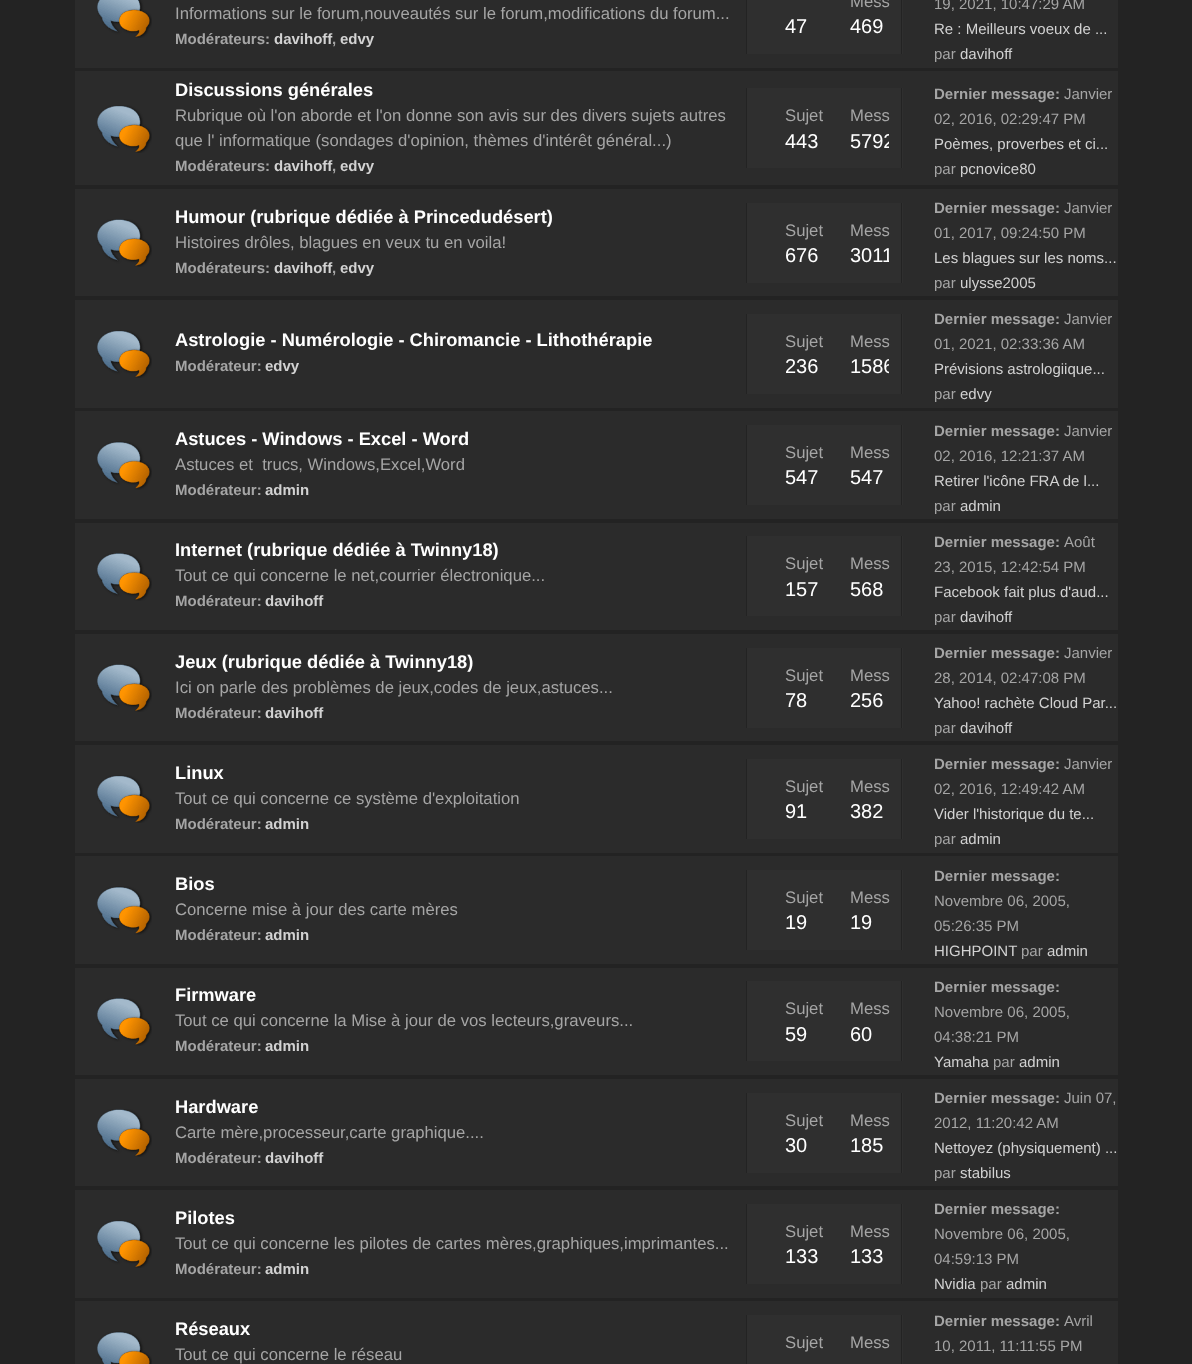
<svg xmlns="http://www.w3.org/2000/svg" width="1192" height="1364">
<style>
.a{font:16.7px Liberation Sans;fill:#a5a5a5}
.b{font:bold 15px Liberation Sans;fill:#a5a5a5}
.c{font:bold 15px Liberation Sans;fill:#d2d2d2}
.d{font:20px Liberation Sans;fill:#fff}
.e{font:15px Liberation Sans;fill:#a5a5a5}
.f{font:15px Liberation Sans;fill:#d2d2d2}
.g{font:bold 18.3px Liberation Sans;fill:#fff}
</style>
<defs>
<clipPath id="clip1"><path d="M825 104h64v51H825z"/></clipPath>
<clipPath id="clip2"><path d="M825 219h64v51H825z"/></clipPath>
<clipPath id="clip3"><path d="M825 330h64v51H825z"/></clipPath>
</defs>
<rect width="100%" height="100%" fill="#232323"/>
<path fill="#2b2b2b" d="M75 0h1043v68H75z"/>
<image href="1.png" x="97" y="0" width="55" height="38"/>
<path fill="#2f2f2f" d="M747 0h156v54H747z"/>
<path fill="#232323" d="M901 0h1v54H901z"/>
<path fill="#232323" d="M746 0h1v54H746z"/>
<path fill="#2b2b2b" d="M75 71h1043v114H75z"/>
<image href="2.png" x="97" y="105" width="55" height="48"/>
<path fill="#2f2f2f" d="M747 88h156v80H747z"/>
<path fill="#232323" d="M901 88h1v80H901z"/>
<path fill="#232323" d="M746 88h1v80H746z"/>
<path fill="#2b2b2b" d="M75 189h1043v107H75z"/>
<image href="3.png" x="97" y="219" width="55" height="48"/>
<path fill="#2f2f2f" d="M747 203h156v80H747z"/>
<path fill="#232323" d="M901 203h1v80H901z"/>
<path fill="#232323" d="M746 203h1v80H746z"/>
<path fill="#2b2b2b" d="M75 300h1043v108H75z"/>
<image href="2.png" x="97" y="330" width="55" height="48"/>
<path fill="#2f2f2f" d="M747 314h156v80H747z"/>
<path fill="#232323" d="M901 314h1v80H901z"/>
<path fill="#232323" d="M746 314h1v80H746z"/>
<path fill="#2b2b2b" d="M75 411h1043v108H75z"/>
<image href="4.png" x="97" y="441" width="55" height="49"/>
<path fill="#2f2f2f" d="M747 425h156v80H747z"/>
<path fill="#232323" d="M901 425h1v80H901z"/>
<path fill="#232323" d="M746 425h1v80H746z"/>
<path fill="#2b2b2b" d="M75 523h1043v107H75z"/>
<image href="5.png" x="97" y="553" width="55" height="48"/>
<path fill="#2f2f2f" d="M747 536h156v80H747z"/>
<path fill="#232323" d="M901 536h1v80H901z"/>
<path fill="#232323" d="M746 536h1v80H746z"/>
<path fill="#2b2b2b" d="M75 634h1043v107H75z"/>
<image href="3.png" x="97" y="664" width="55" height="48"/>
<path fill="#2f2f2f" d="M747 648h156v80H747z"/>
<path fill="#232323" d="M901 648h1v80H901z"/>
<path fill="#232323" d="M746 648h1v80H746z"/>
<path fill="#2b2b2b" d="M75 745h1043v108H75z"/>
<image href="2.png" x="97" y="775" width="55" height="48"/>
<path fill="#2f2f2f" d="M747 759h156v80H747z"/>
<path fill="#232323" d="M901 759h1v80H901z"/>
<path fill="#232323" d="M746 759h1v80H746z"/>
<path fill="#2b2b2b" d="M75 856h1043v108H75z"/>
<image href="4.png" x="97" y="886" width="55" height="49"/>
<path fill="#2f2f2f" d="M747 870h156v80H747z"/>
<path fill="#232323" d="M901 870h1v80H901z"/>
<path fill="#232323" d="M746 870h1v80H746z"/>
<path fill="#2b2b2b" d="M75 968h1043v107H75z"/>
<image href="5.png" x="97" y="998" width="55" height="48"/>
<path fill="#2f2f2f" d="M747 981h156v80H747z"/>
<path fill="#232323" d="M901 981h1v80H901z"/>
<path fill="#232323" d="M746 981h1v80H746z"/>
<path fill="#2b2b2b" d="M75 1079h1043v107H75z"/>
<image href="3.png" x="97" y="1109" width="55" height="48"/>
<path fill="#2f2f2f" d="M747 1093h156v80H747z"/>
<path fill="#232323" d="M901 1093h1v80H901z"/>
<path fill="#232323" d="M746 1093h1v80H746z"/>
<path fill="#2b2b2b" d="M75 1190h1043v108H75z"/>
<image href="2.png" x="97" y="1220" width="55" height="48"/>
<path fill="#2f2f2f" d="M747 1204h156v80H747z"/>
<path fill="#232323" d="M901 1204h1v80H901z"/>
<path fill="#232323" d="M746 1204h1v80H746z"/>
<path fill="#2b2b2b" d="M75 1301h1043v63H75z"/>
<image href="6.png" x="97" y="1331" width="55" height="33"/>
<path fill="#2f2f2f" d="M747 1315h156v49H747z"/>
<path fill="#232323" d="M901 1315h1v49H901z"/>
<path fill="#232323" d="M746 1315h1v49H746z"/>
<text class="a" x="175" y="19">Informations sur le forum,nouveautés sur le forum,modifications du forum...</text>
<text class="b" x="175" y="44">Modérateurs:</text>
<text class="c" x="274" y="44">davihoff</text>
<text class="b" x="332" y="44">,</text>
<text class="c" x="340" y="44">edvy</text>
<text class="d" x="785" y="33">47</text>
<text class="a" x="850" y="7">Mess</text>
<text class="d" x="850" y="33">469</text>
<text class="e" x="934" y="9">19, 2021, 10:47:29 AM</text>
<text class="f" x="934" y="34">Re : Meilleurs voeux de ...</text>
<text class="e" x="934" y="59">par</text>
<text class="f" x="960" y="59">davihoff</text>
<text class="g" x="175" y="96">Discussions générales</text>
<text class="a" x="175" y="121">Rubrique où l'on aborde et l'on donne son avis sur des divers sujets autres</text>
<text class="a" x="175" y="146">que l' informatique (sondages d'opinion, thèmes d'intérêt général...)</text>
<text class="b" x="175" y="171">Modérateurs:</text>
<text class="c" x="274" y="171">davihoff</text>
<text class="b" x="332" y="171">,</text>
<text class="c" x="340" y="171">edvy</text>
<text class="a" x="785" y="121">Sujet</text>
<text class="d" x="785" y="148">443</text>
<text class="a" x="850" y="121">Mess</text>
<g clip-path="url(#clip1)">
<text class="d" x="850" y="148">5792</text>
</g>
<text class="b" x="934" y="99">Dernier message:</text>
<text class="e" x="1064" y="99">Janvier</text>
<text class="e" x="934" y="124">02, 2016, 02:29:47 PM</text>
<text class="f" x="934" y="149">Poèmes, proverbes et ci...</text>
<text class="e" x="934" y="174">par</text>
<text class="f" x="960" y="174">pcnovice80</text>
<text class="g" x="175" y="223">Humour (rubrique dédiée à Princedudésert)</text>
<text class="a" x="175" y="248">Histoires drôles, blagues en veux tu en voila!</text>
<text class="b" x="175" y="273">Modérateurs:</text>
<text class="c" x="274" y="273">davihoff</text>
<text class="b" x="332" y="273">,</text>
<text class="c" x="340" y="273">edvy</text>
<text class="a" x="785" y="236">Sujet</text>
<text class="d" x="785" y="262">676</text>
<text class="a" x="850" y="236">Mess</text>
<g clip-path="url(#clip2)">
<text class="d" x="850" y="262">3011</text>
</g>
<text class="b" x="934" y="213">Dernier message:</text>
<text class="e" x="1064" y="213">Janvier</text>
<text class="e" x="934" y="238">01, 2017, 09:24:50 PM</text>
<text class="f" x="934" y="263">Les blagues sur les noms...</text>
<text class="e" x="934" y="288">par</text>
<text class="f" x="960" y="288">ulysse2005</text>
<text class="g" x="175" y="346">Astrologie - Numérologie - Chiromancie - Lithothérapie</text>
<text class="b" x="175" y="371">Modérateur:</text>
<text class="c" x="265" y="371">edvy</text>
<text class="a" x="785" y="347">Sujet</text>
<text class="d" x="785" y="373">236</text>
<text class="a" x="850" y="347">Mess</text>
<g clip-path="url(#clip3)">
<text class="d" x="850" y="373">1586</text>
</g>
<text class="b" x="934" y="324">Dernier message:</text>
<text class="e" x="1064" y="324">Janvier</text>
<text class="e" x="934" y="349">01, 2021, 02:33:36 AM</text>
<text class="f" x="934" y="374">Prévisions astrologiique...</text>
<text class="e" x="934" y="399">par</text>
<text class="f" x="960" y="399">edvy</text>
<text class="g" x="175" y="445">Astuces - Windows - Excel - Word</text>
<text class="a" xml:space="preserve" x="175" y="470">Astuces et  trucs, Windows,Excel,Word</text>
<text class="b" x="175" y="495">Modérateur:</text>
<text class="c" x="265" y="495">admin</text>
<text class="a" x="785" y="458">Sujet</text>
<text class="d" x="785" y="484">547</text>
<text class="a" x="850" y="458">Mess</text>
<text class="d" x="850" y="484">547</text>
<text class="b" x="934" y="436">Dernier message:</text>
<text class="e" x="1064" y="436">Janvier</text>
<text class="e" x="934" y="461">02, 2016, 12:21:37 AM</text>
<text class="f" x="934" y="486">Retirer l'icône FRA de l...</text>
<text class="e" x="934" y="511">par</text>
<text class="f" x="960" y="511">admin</text>
<text class="g" x="175" y="556">Internet (rubrique dédiée à Twinny18)</text>
<text class="a" x="175" y="581">Tout ce qui concerne le net,courrier électronique...</text>
<text class="b" x="175" y="606">Modérateur:</text>
<text class="c" x="265" y="606">davihoff</text>
<text class="a" x="785" y="569">Sujet</text>
<text class="d" x="785" y="596">157</text>
<text class="a" x="850" y="569">Mess</text>
<text class="d" x="850" y="596">568</text>
<text class="b" x="934" y="547">Dernier message:</text>
<text class="e" x="1064" y="547">Août</text>
<text class="e" x="934" y="572">23, 2015, 12:42:54 PM</text>
<text class="f" x="934" y="597">Facebook fait plus d'aud...</text>
<text class="e" x="934" y="622">par</text>
<text class="f" x="960" y="622">davihoff</text>
<text class="g" x="175" y="668">Jeux (rubrique dédiée à Twinny18)</text>
<text class="a" x="175" y="693">Ici on parle des problèmes de jeux,codes de jeux,astuces...</text>
<text class="b" x="175" y="718">Modérateur:</text>
<text class="c" x="265" y="718">davihoff</text>
<text class="a" x="785" y="681">Sujet</text>
<text class="d" x="785" y="707">78</text>
<text class="a" x="850" y="681">Mess</text>
<text class="d" x="850" y="707">256</text>
<text class="b" x="934" y="658">Dernier message:</text>
<text class="e" x="1064" y="658">Janvier</text>
<text class="e" x="934" y="683">28, 2014, 02:47:08 PM</text>
<text class="f" x="934" y="708">Yahoo! rachète Cloud Par...</text>
<text class="e" x="934" y="733">par</text>
<text class="f" x="960" y="733">davihoff</text>
<text class="g" x="175" y="779">Linux</text>
<text class="a" x="175" y="804">Tout ce qui concerne ce système d'exploitation</text>
<text class="b" x="175" y="829">Modérateur:</text>
<text class="c" x="265" y="829">admin</text>
<text class="a" x="785" y="792">Sujet</text>
<text class="d" x="785" y="818">91</text>
<text class="a" x="850" y="792">Mess</text>
<text class="d" x="850" y="818">382</text>
<text class="b" x="934" y="769">Dernier message:</text>
<text class="e" x="1064" y="769">Janvier</text>
<text class="e" x="934" y="794">02, 2016, 12:49:42 AM</text>
<text class="f" x="934" y="819">Vider l'historique du te...</text>
<text class="e" x="934" y="844">par</text>
<text class="f" x="960" y="844">admin</text>
<text class="g" x="175" y="890">Bios</text>
<text class="a" x="175" y="915">Concerne mise à jour des carte mères</text>
<text class="b" x="175" y="940">Modérateur:</text>
<text class="c" x="265" y="940">admin</text>
<text class="a" x="785" y="903">Sujet</text>
<text class="d" x="785" y="929">19</text>
<text class="a" x="850" y="903">Mess</text>
<text class="d" x="850" y="929">19</text>
<text class="b" x="934" y="881">Dernier message:</text>
<text class="e" x="934" y="906">Novembre 06, 2005,</text>
<text class="e" x="934" y="931">05:26:35 PM</text>
<text class="f" x="934" y="956">HIGHPOINT</text>
<text class="e" x="1021" y="956">par</text>
<text class="f" x="1047" y="956">admin</text>
<text class="g" x="175" y="1001">Firmware</text>
<text class="a" x="175" y="1026">Tout ce qui concerne la Mise à jour de vos lecteurs,graveurs...</text>
<text class="b" x="175" y="1051">Modérateur:</text>
<text class="c" x="265" y="1051">admin</text>
<text class="a" x="785" y="1014">Sujet</text>
<text class="d" x="785" y="1041">59</text>
<text class="a" x="850" y="1014">Mess</text>
<text class="d" x="850" y="1041">60</text>
<text class="b" x="934" y="992">Dernier message:</text>
<text class="e" x="934" y="1017">Novembre 06, 2005,</text>
<text class="e" x="934" y="1042">04:38:21 PM</text>
<text class="f" x="934" y="1067">Yamaha</text>
<text class="e" x="993" y="1067">par</text>
<text class="f" x="1019" y="1067">admin</text>
<text class="g" x="175" y="1113">Hardware</text>
<text class="a" x="175" y="1138">Carte mère,processeur,carte graphique....</text>
<text class="b" x="175" y="1163">Modérateur:</text>
<text class="c" x="265" y="1163">davihoff</text>
<text class="a" x="785" y="1126">Sujet</text>
<text class="d" x="785" y="1152">30</text>
<text class="a" x="850" y="1126">Mess</text>
<text class="d" x="850" y="1152">185</text>
<text class="b" x="934" y="1103">Dernier message:</text>
<text class="e" x="1064" y="1103">Juin 07,</text>
<text class="e" x="934" y="1128">2012, 11:20:42 AM</text>
<text class="f" x="934" y="1153">Nettoyez (physiquement) ...</text>
<text class="e" x="934" y="1178">par</text>
<text class="f" x="960" y="1178">stabilus</text>
<text class="g" x="175" y="1224">Pilotes</text>
<text class="a" x="175" y="1249">Tout ce qui concerne les pilotes de cartes mères,graphiques,imprimantes...</text>
<text class="b" x="175" y="1274">Modérateur:</text>
<text class="c" x="265" y="1274">admin</text>
<text class="a" x="785" y="1237">Sujet</text>
<text class="d" x="785" y="1263">133</text>
<text class="a" x="850" y="1237">Mess</text>
<text class="d" x="850" y="1263">133</text>
<text class="b" x="934" y="1214">Dernier message:</text>
<text class="e" x="934" y="1239">Novembre 06, 2005,</text>
<text class="e" x="934" y="1264">04:59:13 PM</text>
<text class="f" x="934" y="1289">Nvidia</text>
<text class="e" x="980" y="1289">par</text>
<text class="f" x="1006" y="1289">admin</text>
<text class="g" x="175" y="1335">Réseaux</text>
<text class="a" x="175" y="1360">Tout ce qui concerne le réseau</text>
<text class="a" x="785" y="1348">Sujet</text>
<text class="a" x="850" y="1348">Mess</text>
<text class="b" x="934" y="1326">Dernier message:</text>
<text class="e" x="1064" y="1326">Avril</text>
<text class="e" x="934" y="1351">10, 2011, 11:11:55 PM</text>
</svg>
